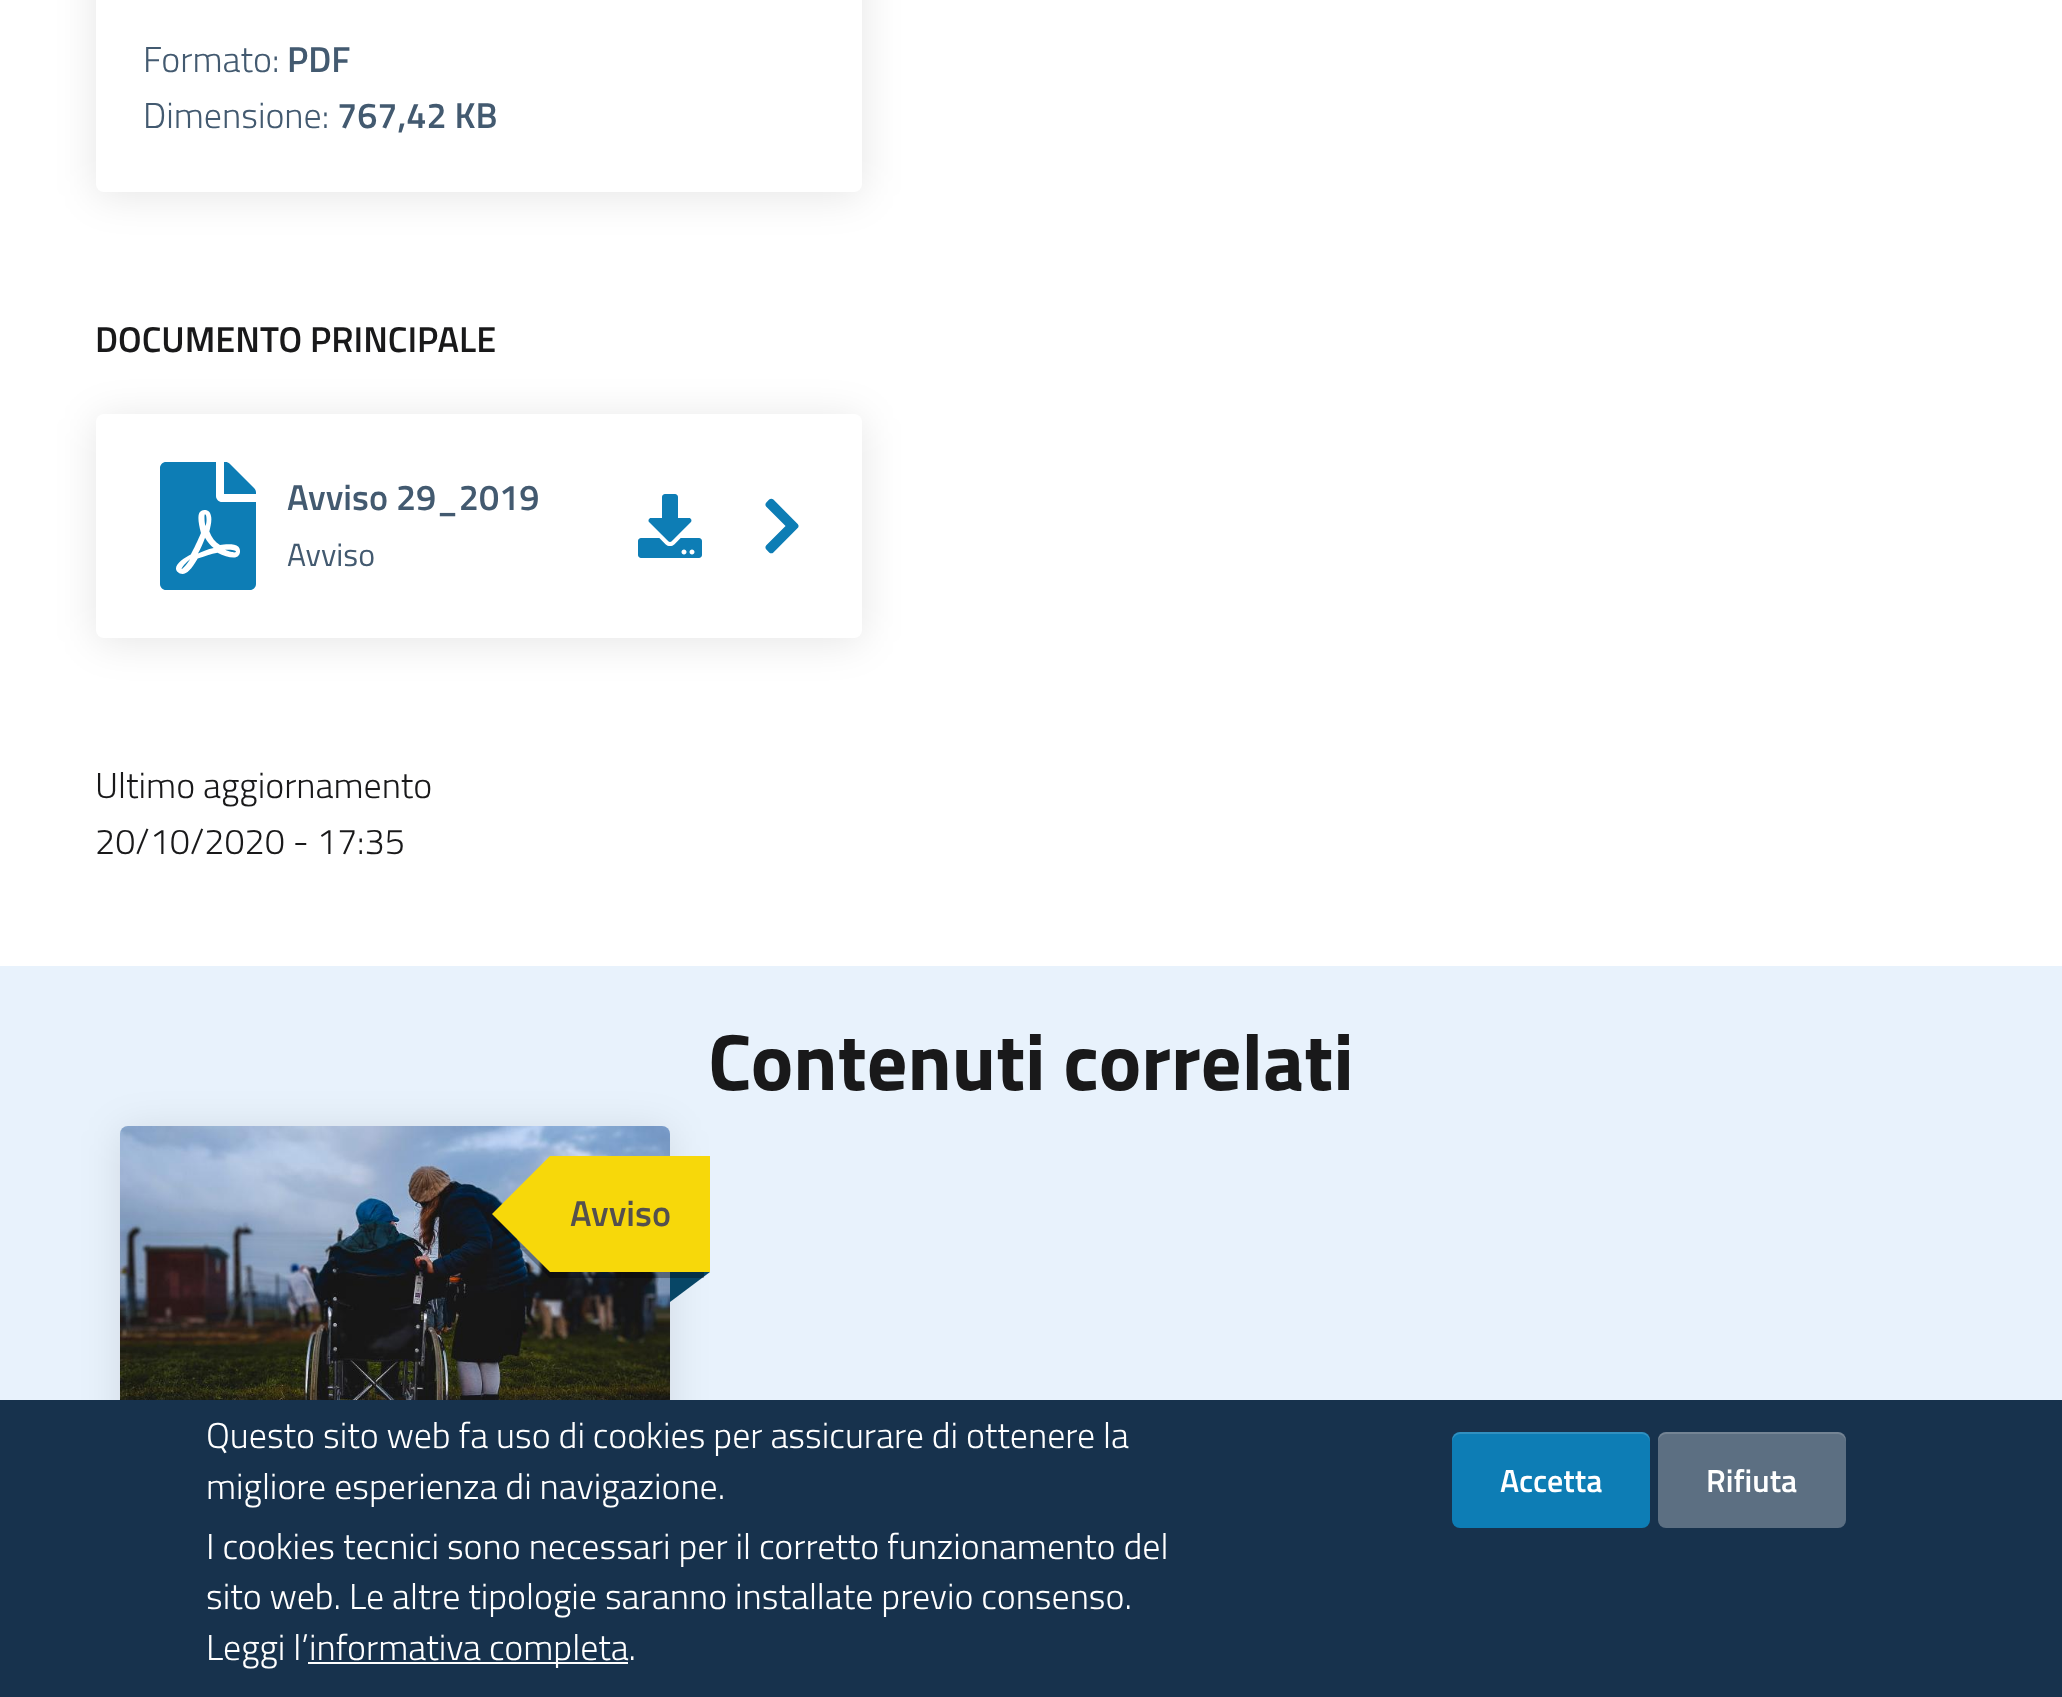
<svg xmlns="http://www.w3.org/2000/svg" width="2062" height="1697">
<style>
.a{font:300 36px Titillium Web;fill:#435a70}
.b{font:600 36px Titillium Web;fill:#435a70}
.c{font:600 36px Titillium Web;fill:#19191a}
.d{font:32px Titillium Web;fill:#435a70}
.e{font:300 36px Titillium Web;fill:#19191a}
.f{font:bold 80px Titillium Web;fill:#19191a}
.g{font:600 36px Titillium Web;fill:#54504e}
.h{font:300 36px Titillium Web;fill:#fff}
.i{font:600 32px Titillium Web;fill:#fff}
</style>
<rect width="100%" height="100%" fill="#fff"/>
<rect fill="#0000001a" filter="blur(20px)" x="96" y="-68" width="766" height="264" rx="8"/>
<rect fill="#fff" x="96" y="-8" width="766" height="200" rx="8"/>
<rect fill="#0000001a" filter="blur(20px)" x="96" y="418" width="766" height="224" rx="8"/>
<rect fill="#fff" x="96" y="414" width="766" height="224" rx="8"/>
<image href="1.png" x="160" y="462" width="96" height="128"/>
<image href="2.png" x="638" y="494" width="64" height="64"/>
<image href="3.png" x="765" y="498" width="34" height="56"/>
<path fill="#e8f2fc" d="M0 966h2062v434H0z"/>
<rect fill="#0000001a" filter="blur(20px)" x="120" y="1130" width="550" height="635" rx="8"/>
<image href="4.png" x="120" y="1126" width="550" height="274"/>
<path fill="#0000004d" d="M550 1162v116l-58-58z"/>
<path fill="#f7d80a" d="M550 1156h160v116H550z"/>
<path fill="#f7d80a" d="M550 1156v116l-58-58z"/>
<path fill="#074666" d="M670 1272h40l-40 30z"/>
<path fill="#0000004d" d="M550 1272h154v6H550z"/>
<path fill="#17324d" d="M0 1400h2062v297H0z"/>
<path fill="#fff" d="M308 1662h320v2H308z"/>
<rect fill="#0d7db5" x="1452" y="1432" width="198" height="96" rx="8"/>
<path fill="#ffffff26" d="M1460 1434h182c4 0 8 4 8 8v-2c0-4-4-8-8-8h-182c-4 0-8 4-8 8v2c0-4 4-8 8-8z"/>
<rect fill="#5c6f82" x="1658" y="1432" width="188" height="96" rx="8"/>
<path fill="#ffffff26" d="M1666 1434h172c4 0 8 4 8 8v-2c0-4-4-8-8-8h-172c-4 0-8 4-8 8v2c0-4 4-8 8-8z"/>
<text class="a" x="143" y="72">Formato:</text>
<text class="b" x="287" y="72">PDF</text>
<text class="a" x="143" y="128">Dimensione:</text>
<text class="b" x="337" y="128">767,42 KB</text>
<text class="c" x="95" y="352">DOCUMENTO PRINCIPALE</text>
<text class="b" x="287" y="510">Avviso 29_2019</text>
<text class="d" x="287" y="566">Avviso</text>
<text class="e" x="95" y="798">Ultimo aggiornamento</text>
<text class="e" x="95" y="854">20/10/2020 - 17:35</text>
<text class="f" x="708" y="1090">Contenuti correlati</text>
<text class="g" x="570" y="1226">Avviso</text>
<text class="h" x="206" y="1448">Questo sito web fa uso di cookies per assicurare di ottenere la</text>
<text class="h" x="206" y="1499">migliore esperienza di navigazione.</text>
<text class="h" x="206" y="1559">I cookies tecnici sono necessari per il corretto funzionamento del</text>
<text class="h" x="206" y="1609">sito web. Le altre tipologie saranno installate previo consenso.</text>
<text class="h" x="206" y="1660">Leggi l’</text>
<text class="h" x="309" y="1660">informativa completa.</text>
<text class="i" x="1500" y="1492">Accetta</text>
<text class="i" x="1706" y="1492">Rifiuta</text>
</svg>
